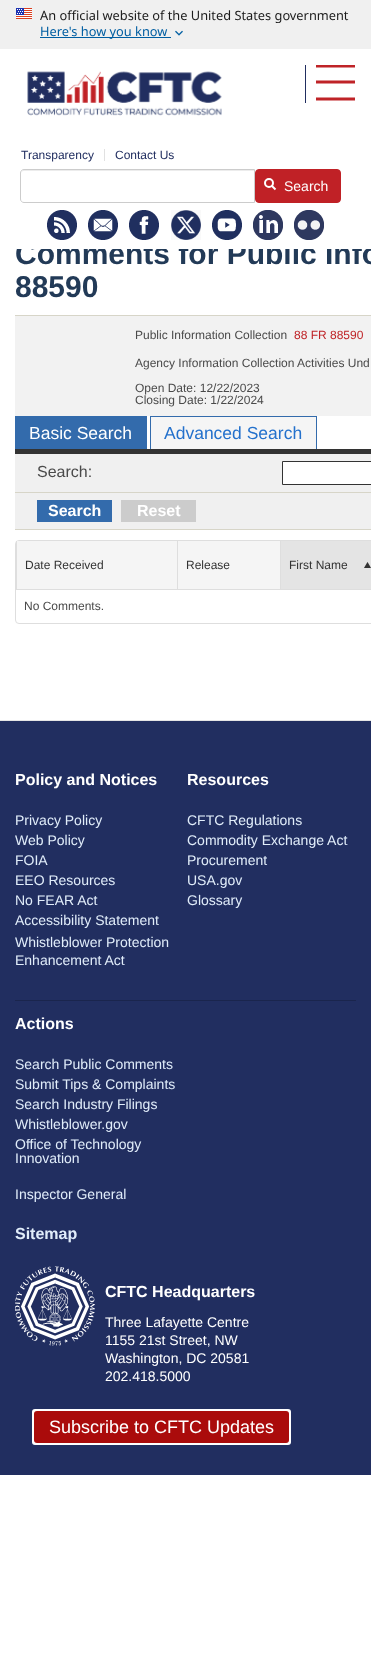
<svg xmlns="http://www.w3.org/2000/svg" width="371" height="1657">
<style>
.a{font:12.8px Noto Sans;fill:#1b1b1b}
.b{font:12.8px Noto Sans;fill:#005ea2}
.c{font:12px Liberation Sans;fill:#212e60}
.d{font:14px Liberation Sans;fill:#fff}
.e{font:bold 30px Liberation Sans;fill:#223a57}
.f{font:12px Liberation Sans;fill:#4a4a4a}
.g{font:12px Liberation Sans;fill:#bf2327}
.h{font:17.5px Liberation Sans;fill:#fff}
.i{font:17.5px Liberation Sans;fill:#2471cc}
.j{font:16px Liberation Sans;fill:#4a4a4a}
.k{font:bold 16px Liberation Sans;fill:#fff}
.l{font:12px Liberation Sans;fill:#333}
.m{font:14px Liberation Sans;fill:#e1edfa}
.n{font:bold 16px Liberation Sans;fill:#e1edfa}
.o{font:18px Liberation Sans;fill:#fff}
</style>
<defs>
<clipPath id="clip1"><path d="M316 65h39v38H316z"/></clipPath>
</defs>
<rect width="100%" height="100%" fill="#fff"/>
<path fill="#f0f0f0" d="M0 0h371v49H0z"/>
<image href="1.png" x="16" y="8" width="16" height="11"/>
<path fill="#005ea2" d="M40 37h127v1H40z"/>
<image href="2.png" x="175" y="30" width="8" height="6"/>
<path fill="#005ea2" d="M167 37h4v1H167z"/>
<image href="3.png" x="27" y="71" width="195" height="45"/>
<path fill="#212e60" d="M305 65h1v38H305z"/>
<g clip-path="url(#clip1)">
<path fill="none" stroke="#bf2327" stroke-width="3" stroke-linecap="square" d="M317.5 66h36"/>
</g>
<path fill="none" stroke="#bf2327" stroke-width="3" stroke-linecap="square" d="M317.5 82h36m-36 17h36"/>
<path fill="#e1e1e1" d="M104 149h1v12H104z"/>
<path fill="#ececec" d="M24 171h230v-1h-230c-2 0-3 2-3 4c0-2 1-3 3-3z"/>
<path fill="none" stroke="#ccc" d="M24 169.5h230.5v33h-230.5c-2 0-3.5-1.5-3.5-3.5v-26c0-2 1.5-3.5 3.5-3.5z"/>
<rect fill="#c02126" stroke="#c02126" x="255.5" y="169.5" width="85" height="33" rx="3.5"/>
<path fill="none" stroke="#fff" stroke-width="2" d="M275.5 189.5l-4-4"/>
<circle fill="none" stroke="#fff" stroke-width="2" cx="269" cy="183" r="4"/>
<image href="4.png" x="47" y="210" width="30" height="30"/>
<image href="5.png" x="88" y="210" width="30" height="30"/>
<image href="6.png" x="129" y="210" width="30" height="30"/>
<image href="7.png" x="171" y="210" width="30" height="30"/>
<image href="8.png" x="212" y="210" width="30" height="30"/>
<image href="9.png" x="253" y="210" width="30" height="30"/>
<image href="10.png" x="294" y="210" width="30" height="30"/>
<path fill="#f2f2f2" d="M15 316h356v100H15z"/>
<path fill="#d7d5c8" d="M15 315h356v1H15z"/>
<path fill="#333" d="M15 449h356v5H15z"/>
<path fill="#336bac" d="M16 417h130v32H16z"/>
<path fill="#336bac" d="M15 416h132v1H15z"/>
<path fill="#336bac" d="M146 416h1v33H146z"/>
<path fill="#336bac" d="M15 416h1v33H15z"/>
<path fill="#f5f5f5" d="M151 417h165v32H151z"/>
<path fill="#336bac" d="M150 416h167v1H150z"/>
<path fill="#336bac" d="M316 416h1v33H316z"/>
<path fill="#336bac" d="M150 416h1v33H150z"/>
<path fill="#f0f0f0" d="M15 454h356v38H15z"/>
<path fill="#d7d5c8" d="M15 492h356v1H15z"/>
<path fill="#fff" stroke="#333" d="M282.5 461.5h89v23H282.5z"/>
<path fill="#f0f0f0" d="M15 493h356v36H15z"/>
<path fill="#d7d5c8" d="M15 529h356v1H15z"/>
<path fill="#336bac" d="M37 500h75v22H37z"/>
<path fill="#ccc" d="M121 500h75v22H121z"/>
<rect fill="none" stroke="#dedede" x="15.5" y="540.5" width="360" height="83" rx="3.5"/>
<path fill="#f5f5f5" d="M17 541h160v48H17z"/>
<path fill="#dedede" d="M16 589h355v1H16z"/>
<path fill="#dedede" d="M16 541h1v49H16z"/>
<path fill="#f5f5f5" d="M178 541h102v48H178z"/>
<path fill="#dedede" d="M177 541h1v49H177z"/>
<path fill="#e4e4e4" d="M281 541h90v48H281z"/>
<path fill="#dedede" d="M280 541h1v49H280z"/>
<image href="11.png" x="364" y="562" width="7" height="6"/>
<path fill="#212e60" d="M0 721h371v754H0z"/>
<path fill="#e5e5e5" d="M0 720h371v1H0z"/>
<path fill="#1a254d" d="M15 1000h341v1H15z"/>
<image href="12.png" x="15" y="1266" width="80" height="80"/>
<rect fill="#fff" x="32" y="1409" width="259" height="36" rx="3"/>
<rect fill="#aa0b0b" x="34" y="1411" width="255" height="32" rx="3"/>
<text class="a" x="40" y="20">An official website of the United States government</text>
<text class="b" x="40" y="36">Here's how you know</text>
<text class="c" x="21" y="159">Transparency</text>
<text class="c" x="115" y="159">Contact Us</text>
<text class="d" x="284" y="191">Search</text>
<text class="e" x="15" y="264">Comments for Public Info</text>
<path fill="#fff" d="M17 242h354v7H17z"/>
<text class="e" x="15" y="297">88590</text>
<text class="f" x="135" y="339">Public Information Collection</text>
<text class="g" x="294" y="339">88 FR 88590</text>
<text class="f" x="135" y="367">Agency Information Collection Activities Und</text>
<text class="f" x="135" y="392">Open Date: 12/22/2023</text>
<text class="f" x="135" y="404">Closing Date: 1/22/2024</text>
<text class="h" x="29" y="439">Basic Search</text>
<text class="i" x="164" y="439">Advanced Search</text>
<text class="j" x="37" y="477">Search:</text>
<text class="k" x="48" y="516">Search</text>
<text class="k" x="137" y="516">Reset</text>
<text class="l" x="25" y="569">Date Received</text>
<text class="l" x="186" y="569">Release</text>
<text class="l" x="289" y="569">First Name</text>
<text class="f" x="24" y="610">No Comments.</text>
<text class="k" x="15" y="785">Policy and Notices</text>
<text class="m" x="15" y="825">Privacy Policy</text>
<text class="m" x="15" y="845">Web Policy</text>
<text class="m" x="15" y="865">FOIA</text>
<text class="m" x="15" y="885">EEO Resources</text>
<text class="m" x="15" y="905">No FEAR Act</text>
<text class="m" x="15" y="925">Accessibility Statement</text>
<text class="m" x="15" y="947">Whistleblower Protection</text>
<text class="m" x="15" y="965">Enhancement Act</text>
<text class="k" x="187" y="785">Resources</text>
<text class="m" x="187" y="825">CFTC Regulations</text>
<text class="m" x="187" y="845">Commodity Exchange Act</text>
<text class="m" x="187" y="865">Procurement</text>
<text class="m" x="187" y="885">USA.gov</text>
<text class="m" x="187" y="905">Glossary</text>
<text class="k" x="15" y="1029">Actions</text>
<text class="m" x="15" y="1069">Search Public Comments</text>
<text class="m" x="15" y="1089">Submit Tips &amp; Complaints</text>
<text class="m" x="15" y="1109">Search Industry Filings</text>
<text class="m" x="15" y="1129">Whistleblower.gov</text>
<text class="m" x="15" y="1149">Office of Technology</text>
<text class="m" x="15" y="1163">Innovation</text>
<text class="m" x="15" y="1199">Inspector General</text>
<text class="n" x="15" y="1239">Sitemap</text>
<text class="k" x="105" y="1297">CFTC Headquarters</text>
<text class="d" x="105" y="1327">Three Lafayette Centre</text>
<text class="d" x="105" y="1345">1155 21st Street, NW</text>
<text class="d" x="105" y="1363">Washington, DC 20581</text>
<text class="d" x="105" y="1381">202.418.5000</text>
<text class="o" x="49" y="1433">Subscribe to CFTC Updates</text>
</svg>
